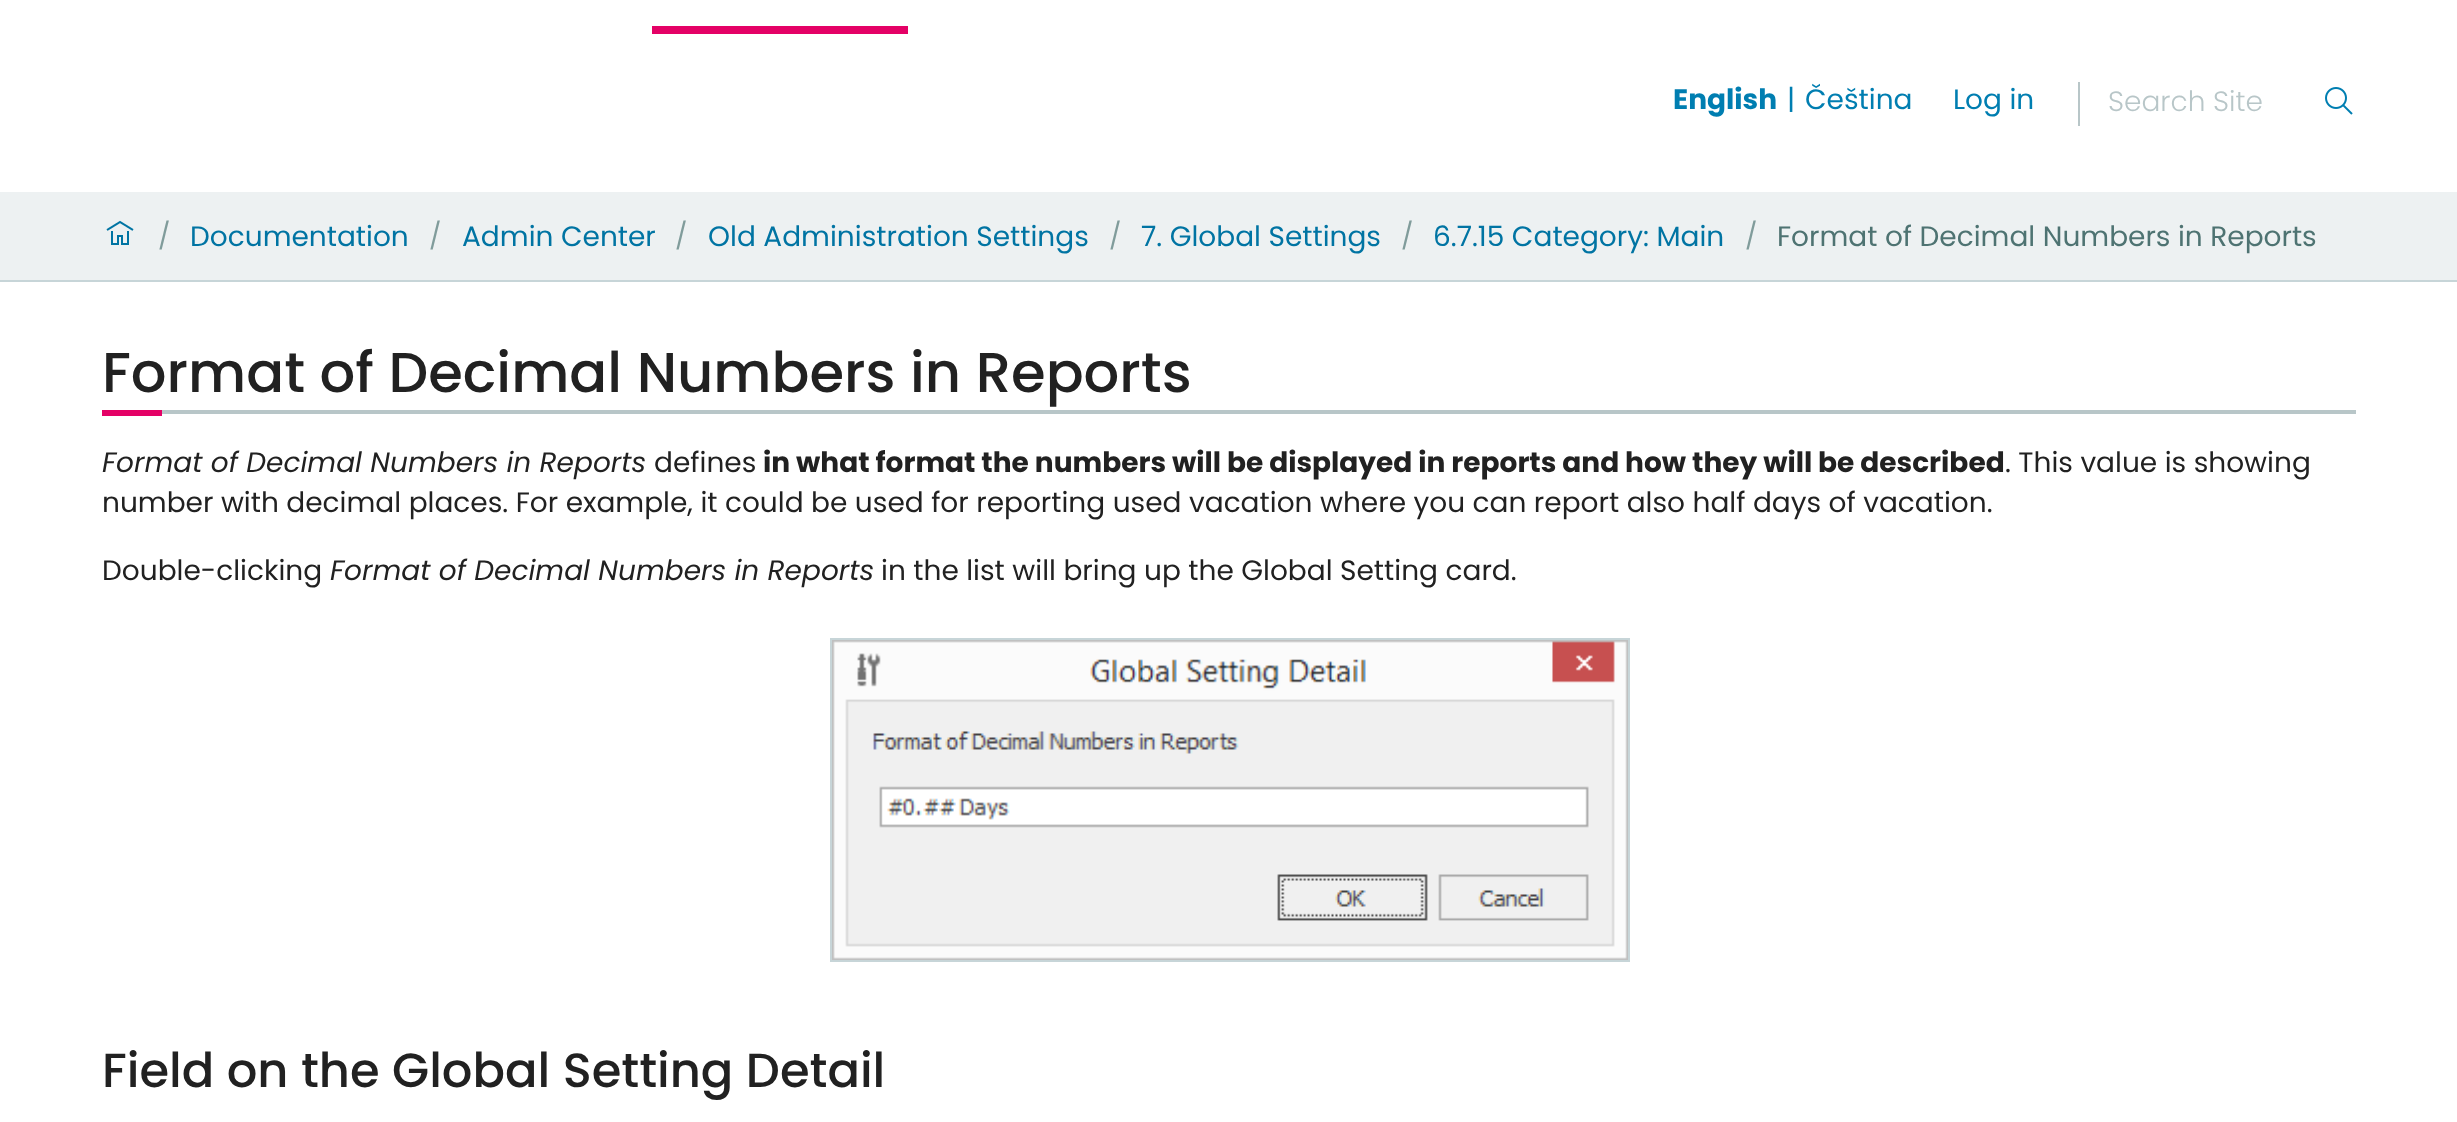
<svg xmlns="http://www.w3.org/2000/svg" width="2457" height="1122">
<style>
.a{font:bold 28px Poppins;fill:#007eb1}
.b{font:28px Poppins;fill:#007eb1}
.c{font:300 28px Poppins;fill:#b8c6c8}
.d{font:26px Poppins;fill:#809c9b}
.e{font:28px Poppins;fill:#0074a3}
.f{font:28px Poppins;fill:#4e7372}
.g{font:500 56px Poppins;fill:#212121}
.h{font:italic 28px Poppins;fill:#212121}
.i{font:28px Poppins;fill:#212121}
.j{font:bold 28px Poppins;fill:#212121}
.k{font:500 48px Poppins;fill:#212121}
</style>
<rect width="100%" height="100%" fill="#fff"/>
<path fill="#e40166" d="M652 26h256v8H652z"/>
<path fill="#b8c6c8" d="M2078 82h2v44H2078z"/>
<image href="1.png" x="2325" y="87" width="28" height="28"/>
<path fill="#edf1f2" d="M0 192h2457v88H0z"/>
<path fill="#c7d5d8" d="M0 280h2457v2H0z"/>
<image href="2.png" x="106" y="220" width="28" height="25"/>
<path fill="#b8c6c8" d="M162 410h2194v4H162z"/>
<path fill="#e40166" d="M102 410h60v6H102z"/>
<path fill="none" stroke="#c7d5d8" stroke-width="2" d="M831 639h798v322H831z"/>
<image href="3.png" x="832" y="640" width="796" height="320"/>
<text class="a" x="1673" y="109">English</text>
<text class="b" x="1787" y="109">|</text>
<text class="b" x="1805" y="109">Čeština</text>
<text class="b" x="1953" y="109">Log in</text>
<text class="c" x="2108" y="111">Search Site</text>
<text class="d" x="158" y="245">/</text>
<text class="e" x="190" y="246">Documentation</text>
<text class="d" x="429" y="245">/</text>
<text class="e" x="462" y="246">Admin Center</text>
<text class="d" x="675" y="245">/</text>
<text class="e" x="708" y="246">Old Administration Settings</text>
<text class="d" x="1109" y="245">/</text>
<text class="e" x="1141" y="246">7. Global Settings</text>
<text class="d" x="1401" y="245">/</text>
<text class="e" x="1433" y="246">6.7.15 Category: Main</text>
<text class="d" x="1745" y="245">/</text>
<text class="f" x="1777" y="246">Format of Decimal Numbers in Reports</text>
<text class="g" x="102" y="392">Format of Decimal Numbers in Reports</text>
<text class="h" x="102" y="472">Format of Decimal Numbers in Reports</text>
<text class="i" x="654" y="472">defines</text>
<text class="j" x="763" y="472">in what format the numbers will be displayed in reports and how they will be described</text>
<text class="i" x="2005" y="472">. This value is showing</text>
<text class="i" x="102" y="512">number with decimal places. For example, it could be used for reporting used vacation where you can report also half days of vacation.</text>
<text class="i" x="102" y="580">Double-clicking</text>
<text class="h" x="330" y="580">Format of Decimal Numbers in Reports</text>
<text class="i" x="881" y="580">in the list will bring up the Global Setting card.</text>
<text class="k" x="102" y="1087">Field on the Global Setting Detail</text>
</svg>
